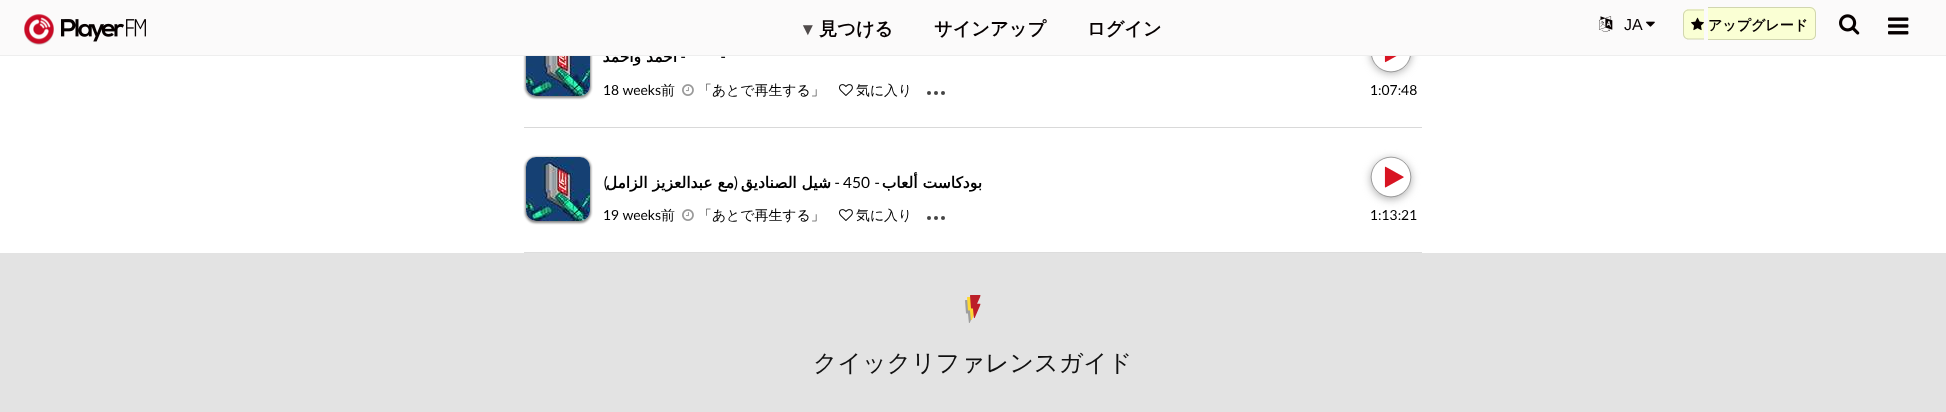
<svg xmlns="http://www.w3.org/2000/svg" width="1946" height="412">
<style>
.a{font:bold 15.5px DejaVu Sans;direction:rtl;fill:#000}
.b{font:bold 14px WenQuanYi Zen Hei;fill:#060000}
.c{font:16px Liberation Sans;fill:#060000}
.d{font:bold 18.25px WenQuanYi Zen Hei;fill:#060000}
.e{font:bold 18.25px DejaVu Sans;fill:#504b4b}
.f{font:15.5px Lato;direction:rtl;fill:#000}
.g{font:13.9px Lato;fill:#000}
.h{font:500 13.9px WenQuanYi Zen Hei;fill:#000}
.i{font:15.5px Lato;fill:#000}
.j{font:500 24px WenQuanYi Zen Hei;fill:#111}
</style>
<defs>
<clipPath id="clip1"><path d="M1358 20h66v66h-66zm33 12c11 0 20 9 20 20c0 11-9 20-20 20c-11 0-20-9-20-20c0-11 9-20 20-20z" clip-rule="evenodd"/></clipPath>
<clipPath id="clip2"><path d="M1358 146h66v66h-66zm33 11c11 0 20 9 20 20c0 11-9 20-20 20c-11 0-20-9-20-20c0-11 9-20 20-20z" clip-rule="evenodd"/></clipPath>
<clipPath id="clip3"><path d="M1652 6h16v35h-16zm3 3h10v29h-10z" clip-rule="evenodd"/></clipPath>
<clipPath id="clip4"><path d="M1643 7h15v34h-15zm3 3h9v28h-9z" clip-rule="evenodd"/></clipPath>
<clipPath id="clip5"><path d="M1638 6h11v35h-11zm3 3h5v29h-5z" clip-rule="evenodd"/></clipPath>
<clipPath id="clip6"><path d="M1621 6h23v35h-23zm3 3h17v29h-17z" clip-rule="evenodd"/></clipPath>
<clipPath id="clip7"><path d="M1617 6h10v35h-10zm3 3h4v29h-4z" clip-rule="evenodd"/></clipPath>
<clipPath id="clip8"><path d="M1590 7h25v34h-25zm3 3h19v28h-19z" clip-rule="evenodd"/></clipPath>
</defs>
<rect width="100%" height="100%" fill="#fff"/>
<rect fill="#888" filter="blur(1px)" x="525" y="32" width="66" height="66" rx="11"/>
<rect fill="#fff" x="526" y="32" width="64" height="64" rx="10"/>
<image href="8.png" x="526" y="56" width="64" height="40"/>
<g clip-path="url(#clip1)">
<rect fill="#aaa" filter="blur(4px)" x="1371" y="33" width="40" height="40" rx="20"/>
</g>
<circle fill="none" stroke="#111" stroke-width="0.4" cx="1391" cy="52" r="19.8"/>
<image href="9.png" x="1384" y="56" width="13" height="7"/>
<image href="10.png" x="682" y="84" width="12" height="12"/>
<image href="11.png" x="839" y="84" width="14" height="12"/>
<circle fill="#444" cx="929" cy="93" r="2"/>
<circle fill="#444" cx="936" cy="93" r="2"/>
<circle fill="#444" cx="943" cy="93" r="2"/>
<path fill="#d9d9d9" d="M524 127h898v1H524z"/>
<rect fill="#888" filter="blur(1px)" x="525" y="157" width="66" height="66" rx="11"/>
<rect fill="#fff" x="526" y="157" width="64" height="64" rx="10"/>
<image href="12.png" x="526" y="157" width="64" height="64"/>
<g clip-path="url(#clip2)">
<rect fill="#aaa" filter="blur(4px)" x="1371" y="159" width="40" height="40" rx="20"/>
</g>
<circle fill="none" stroke="#111" stroke-width="0.4" cx="1391" cy="177" r="19.8"/>
<image href="13.png" x="1384" y="166" width="20" height="22"/>
<image href="10.png" x="682" y="209" width="12" height="12"/>
<image href="11.png" x="839" y="209" width="14" height="12"/>
<circle fill="#444" cx="929" cy="218" r="2"/>
<circle fill="#444" cx="936" cy="218" r="2"/>
<circle fill="#444" cx="943" cy="218" r="2"/>
<path fill="#ddd" d="M524 252h898v1H524z"/>
<path fill="#e3e3e3" d="M0 253h1946v159H0z"/>
<image href="14.png" x="965" y="295" width="16" height="28"/>
<text class="a" x="677" y="62">أحمد وأحمد</text>
<path fill="#fbfafa" d="M0 0h1946v55H0z"/>
<image href="7.png" x="1888" y="17" width="21" height="18"/>
<image href="6.png" x="1839" y="14" width="21" height="21"/>
<path fill="#faffd4" d="M1708 7h102c3.5 0 6 2.5 6 6v21c0 3.5-2.5 6-6 6h-102z"/>
<path fill="#d1d6af" fill-rule="evenodd" d="M1708 7h102c3 0 6 3 6 6v22c0 3-3 5-6 5h-102zm0 1h102c3 0 5 3 5 5v22c0 2-2 4-5 4h-102z"/>
<text class="b" x="1708" y="30">アップグレード</text>
<path fill="#faffd4" d="M1689 9h15v30h-15c-3.5 0-6-2.5-6-6v-18c0-3.5 2.5-6 6-6z"/>
<path fill="#d1d6af" fill-rule="evenodd" d="M1688.5 9.5h15.5v30h-15.5c-3 0-5.5-2.5-5.5-5.5v-19c0-3 2.5-5.5 5.5-5.5zm0 1h15.5v28h-15.5c-2.5 0-4.5-2-4.5-4.5v-19c0-2.5 2-4.5 4.5-4.5z"/>
<image href="5.png" x="1691" y="17" width="13" height="14"/>
<g clip-path="url(#clip3)">
<path fill="#111" filter="blur(0.5px)" d="M1655 9h10v29H1655z"/>
</g>
<g clip-path="url(#clip4)">
<path fill="#111" filter="blur(0.5px)" d="M1646 10h9v28H1646z"/>
</g>
<g clip-path="url(#clip5)">
<path fill="#111" filter="blur(0.5px)" d="M1641 9h5v29H1641z"/>
</g>
<image href="4.png" x="1646" y="21" width="9" height="6"/>
<g clip-path="url(#clip6)">
<path fill="#111" filter="blur(0.5px)" d="M1624 9h17v29H1624z"/>
</g>
<g clip-path="url(#clip7)">
<path fill="#111" filter="blur(0.5px)" d="M1620 9h4v29H1620z"/>
</g>
<text class="c" x="1624" y="30">JA</text>
<g clip-path="url(#clip8)">
<path fill="#111" filter="blur(0.5px)" d="M1593 10h19v28H1593z"/>
</g>
<image href="3.png" x="1599" y="16" width="14" height="16"/>
<image href="2.png" x="61" y="19" width="85" height="23"/>
<image href="1.png" x="24" y="14" width="30" height="31"/>
<text class="d" x="1087" y="35">ログイン</text>
<text class="d" x="934" y="35">サインアップ</text>
<text class="e" x="803" y="35">▾</text>
<text class="d" x="819" y="35">見つける</text>
<path fill="#eee" d="M0 55h1946v1H0z"/>
<text class="f" x="686" y="62">-</text>
<text class="f" x="726" y="62">-</text>
<text class="g" x="603" y="95">18 weeks</text>
<text class="h" x="661" y="95">前</text>
<text class="h" x="698" y="95">「あとで再生する」</text>
<text class="h" x="856" y="95">気に入り</text>
<text class="g" x="1370" y="95">1:07:48</text>
<text class="f" x="608" y="188">)</text>
<text class="a" x="734" y="188">مع عبدالعزيز الزامل</text>
<text class="f" x="738" y="188">(</text>
<text class="a" x="831" y="188">شيل الصناديق</text>
<text class="f" x="840" y="188">-</text>
<text class="i" x="843" y="188">450</text>
<text class="f" x="880" y="188">-</text>
<text class="a" x="982" y="188">بودكاست ألعاب</text>
<text class="g" x="603" y="220">19 weeks</text>
<text class="h" x="661" y="220">前</text>
<text class="h" x="698" y="220">「あとで再生する」</text>
<text class="h" x="856" y="220">気に入り</text>
<text class="g" x="1370" y="220">1:13:21</text>
<text class="j" x="813" y="371">クイックリファレンスガイド</text>
</svg>
